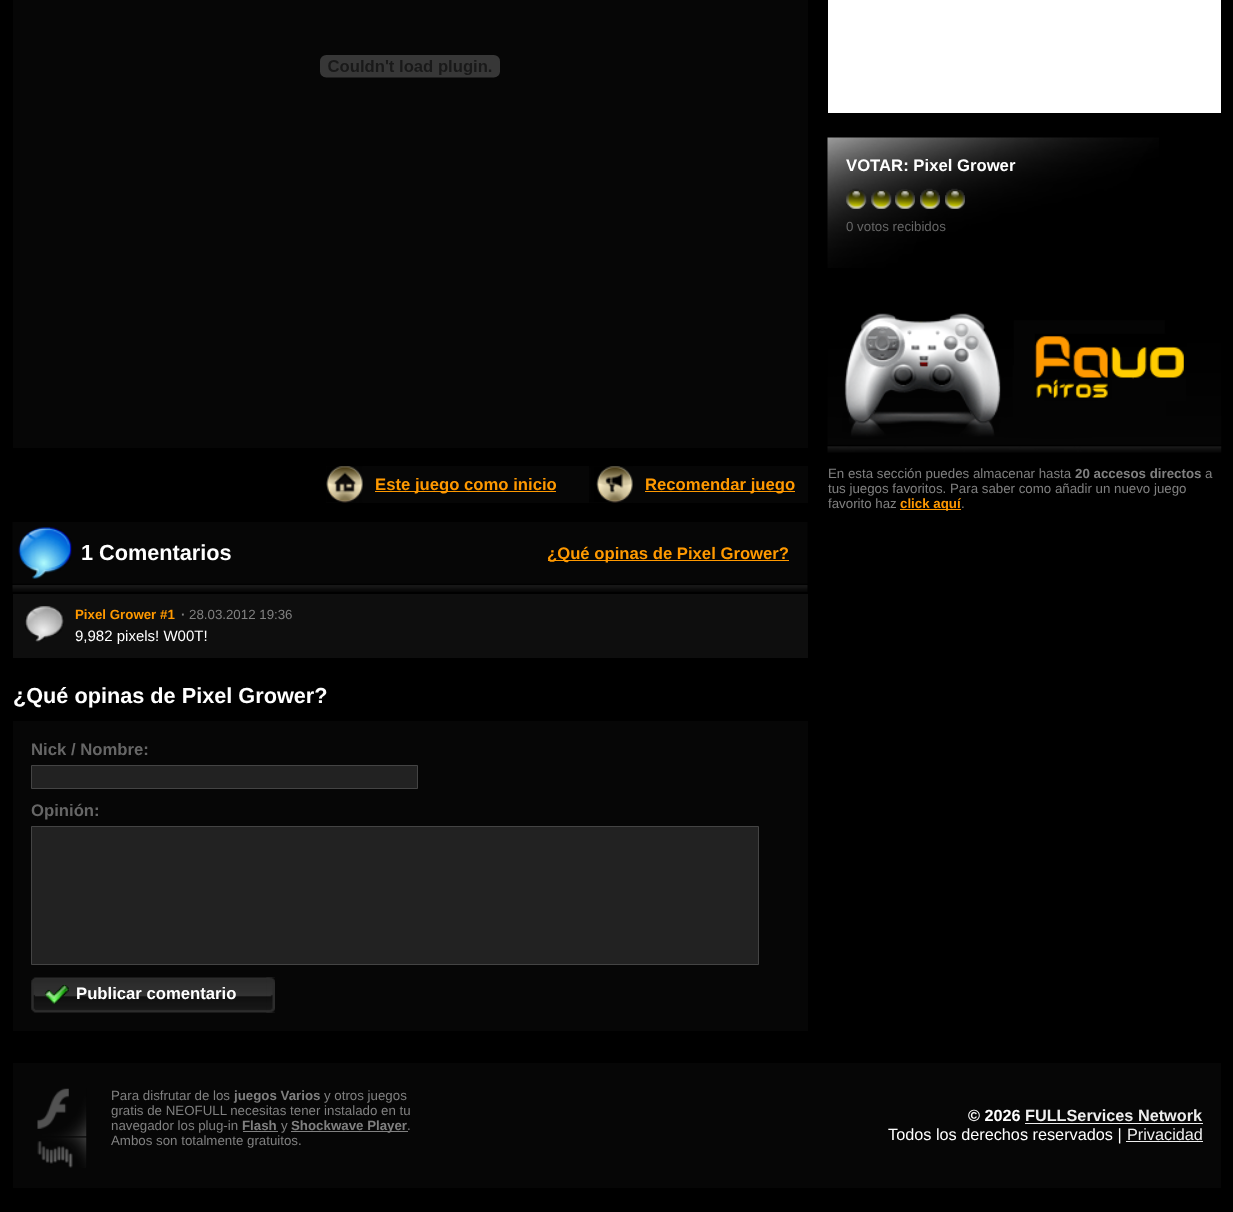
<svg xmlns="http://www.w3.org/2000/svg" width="1233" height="1212">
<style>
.a{font:bold 16.7px Liberation Sans;fill:#fff}
.b{font:13.3px Liberation Sans;fill:#666}
.c{font:13.3px Liberation Sans;fill:#808080}
.d{font:bold 13.3px Liberation Sans;fill:#808080}
.e{font:bold 13.3px Liberation Sans;fill:#f90}
.f{font:bold 16.7px Liberation Sans;fill:#f90}
.g{font:bold 21.7px Liberation Sans;fill:#fff}
.h{font:15px Liberation Sans;fill:#fff}
.i{font:bold 16.7px Liberation Sans;fill:#666}
.j{font:bold 16.25px Liberation Sans;fill:#fff}
.k{font:bold 16.25px Liberation Sans;fill:#eee}
.l{font:16.25px Liberation Sans;fill:#fff}
.m{font:16.25px Liberation Sans;fill:#eee}
</style>
<rect width="100%" height="100%" fill="#000"/>
<path fill="#fff" d="M828 0h393v113H828z"/>
<image href="1.png" x="827" y="137" width="332" height="131"/>
<image href="2.png" x="846" y="188" width="21" height="21"/>
<image href="3.png" x="871" y="190" width="21" height="19"/>
<image href="4.png" x="895" y="189" width="20" height="20"/>
<image href="5.png" x="920" y="188" width="20" height="21"/>
<image href="6.png" x="945" y="188" width="20" height="21"/>
<image href="7.png" x="827" y="313" width="395" height="140"/>
<path fill="#f90" d="M900 509h61v1H900z"/>
<path fill="#060606" d="M13 0h795v448H13z"/>
<image href="8.png" x="320" y="55" width="180" height="23"/>
<path fill="#060606" d="M326 466h482v37H326z"/>
<image href="9.png" x="326" y="466" width="37" height="37"/>
<path fill="#f90" d="M375 491h181v1H375z"/>
<image href="10.png" x="589" y="466" width="44" height="37"/>
<path fill="#f90" d="M645 491h150v1H645z"/>
<image href="11.png" x="12" y="522" width="796" height="70"/>
<image href="12.png" x="18" y="527" width="54" height="52"/>
<path fill="#f90" d="M548 560h241v1H548z"/>
<path fill="#0e0e0e" d="M13 594h795v64H13z"/>
<image href="13.png" x="25" y="606" width="39" height="36"/>
<path fill="#060606" d="M13 721h795v310H13z"/>
<path fill="#222" stroke="#444" d="M31.5 765.5h386v23H31.5z"/>
<path fill="#222" stroke="#444" d="M31.5 826.5h727v138H31.5z"/>
<image href="14.png" x="31" y="977" width="244" height="36"/>
<image href="15.png" x="266" y="977" width="9" height="36"/>
<image href="16.png" x="45" y="985" width="24" height="19"/>
<path fill="#060606" d="M13 1063h1208v125H13z"/>
<image href="17.png" x="37" y="1088" width="50" height="80"/>
<path fill="#808080" d="M243 1131h35v1H243z"/>
<path fill="#808080" d="M291 1131h117v1H291z"/>
<path fill="#eee" d="M1025 1123h178v1H1025z"/>
<path fill="#eee" d="M1126 1141h77v1H1126z"/>
<text class="a" x="846" y="171">VOTAR: Pixel Grower</text>
<text class="b" x="846" y="231">0 votos recibidos</text>
<text class="c" x="828" y="478">En esta sección puedes almacenar hasta</text>
<text class="d" x="1075" y="478">20 accesos directos</text>
<text class="c" x="1205" y="478">a</text>
<text class="c" x="828" y="493">tus juegos favoritos. Para saber como añadir un nuevo juego</text>
<text class="c" x="828" y="508">favorito haz</text>
<text class="e" x="900" y="508">click aquí</text>
<text class="c" x="961" y="508">.</text>
<text class="f" x="375" y="490">Este juego como inicio</text>
<text class="f" x="645" y="490">Recomendar juego</text>
<text class="g" x="81" y="560">1 Comentarios</text>
<text class="f" x="547" y="559">¿Qué opinas de Pixel Grower?</text>
<text class="e" x="75" y="619">Pixel Grower #1</text>
<text class="d" x="181" y="619">·</text>
<text class="c" x="189" y="619">28.03.2012 19:36</text>
<text class="h" x="75" y="641">9,982 pixels! W00T!</text>
<text class="g" x="13" y="703">¿Qué opinas de Pixel Grower?</text>
<text class="i" x="31" y="755">Nick / Nombre:</text>
<text class="i" x="31" y="816">Opinión:</text>
<text class="a" x="76" y="999">Publicar comentario</text>
<text class="c" x="111" y="1100">Para disfrutar de los</text>
<text class="d" x="234" y="1100">juegos Varios</text>
<text class="c" x="324" y="1100">y otros juegos</text>
<text class="c" x="111" y="1115">gratis de NEOFULL necesitas tener instalado en tu</text>
<text class="c" x="111" y="1130">navegador los plug-in</text>
<text class="d" x="242" y="1130">Flash</text>
<text class="c" x="281" y="1130">y</text>
<text class="d" x="291" y="1130">Shockwave Player</text>
<text class="c" x="407" y="1130">.</text>
<text class="c" x="111" y="1145">Ambos son totalmente gratuitos.</text>
<text class="j" x="968" y="1121">© 2026</text>
<text class="k" x="1025" y="1121">FULLServices Network</text>
<text class="l" x="888" y="1140">Todos los derechos reservados |</text>
<text class="m" x="1127" y="1140">Privacidad</text>
</svg>
